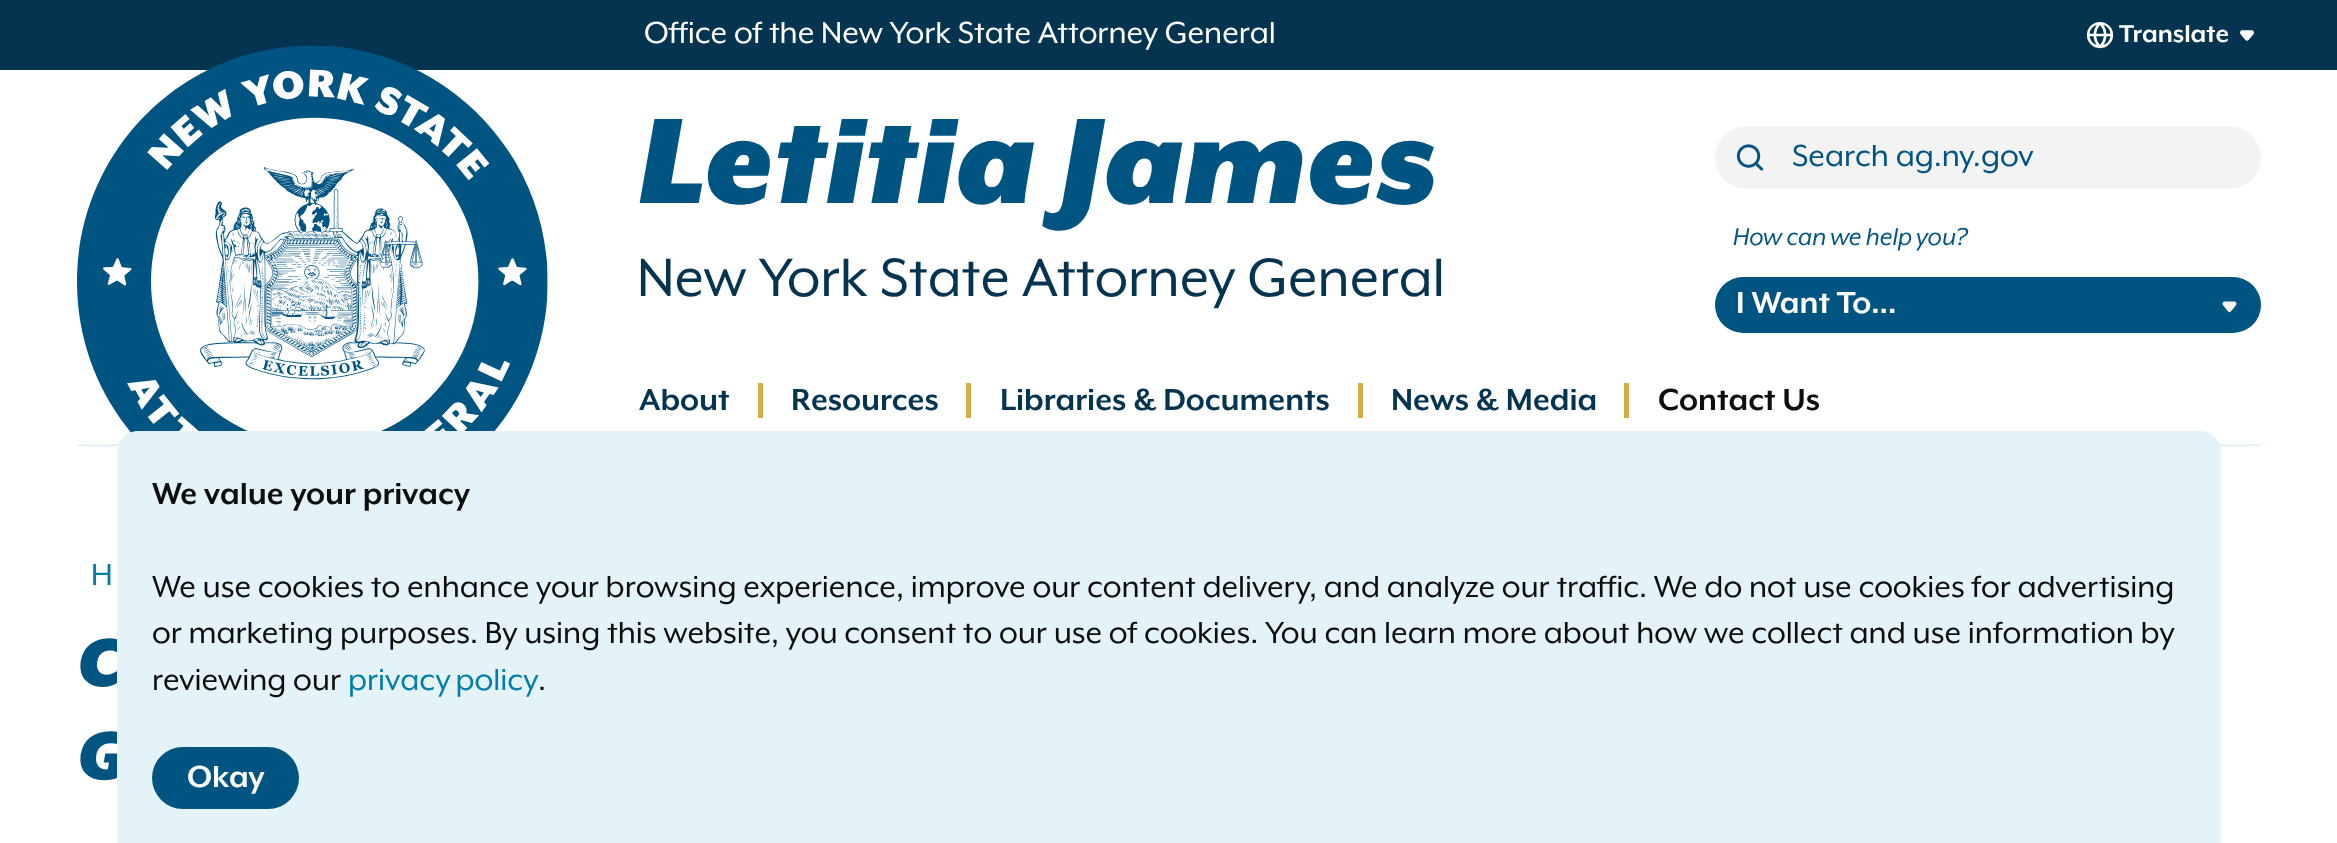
<svg xmlns="http://www.w3.org/2000/svg" width="2337" height="843">
<style>
.a{font:35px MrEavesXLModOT;fill:#fff}
.b{font:bold 28px MrEavesXLModOT;fill:#fff}
.c{font:italic 900 140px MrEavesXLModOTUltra;fill:#005481}
.d{font:62.2px MrEavesXLModOT;fill:#053451}
.e{font:35px MrEavesXLModOT;fill:#005481}
.f{font:italic 28px MrEavesXLModOT;fill:#005481}
.g{font:bold 35px MrEavesXLModOT;fill:#fff}
.h{font:bold 35px MrEavesXLModOT;fill:#053451}
.i{font:bold 35px MrEavesXLModOT;fill:#0e0e0e}
.j{font:35px MrEavesXLModOT;fill:#007ea8}
.k{font:italic 900 78px MrEavesXLModOTUltra;fill:#005481}
.l{font:35px MrEavesXLModOT;fill:#0e0e0e}
</style>
<rect width="100%" height="100%" fill="#fff"/>
<path fill="#053451" d="M0 0h2337v70H0z"/>
<image href="1.png" x="2086" y="22" width="28" height="27"/>
<image href="2.png" x="2240" y="30" width="14" height="11"/>
<image href="3.png" x="77" y="444" width="2184" height="3"/>
<image href="4.png" x="77" y="46" width="471" height="387"/>
<rect fill="#f3f3f3" x="1715" y="126" width="546" height="63" rx="31.5"/>
<image href="5.png" x="1736" y="144" width="28" height="27"/>
<rect fill="#005481" x="1715" y="277" width="546" height="56" rx="28"/>
<image href="6.png" x="2222" y="301" width="15" height="12"/>
<path fill="#d8ab46" d="M758 383h5v35H758z"/>
<path fill="#d8ab46" d="M966 383h5v35H966z"/>
<path fill="#d8ab46" d="M1358 383h5v35H1358z"/>
<path fill="#d8ab46" d="M1624 383h5v35H1624z"/>
<text class="a" x="644" y="43">Office of the New York State Attorney General</text>
<text class="b" x="2119" y="42">Translate</text>
<text class="c" x="637" y="203">Letitia James</text>
<text class="d" x="637" y="296">New York State Attorney General</text>
<text class="e" x="1792" y="166">Search ag.ny.gov</text>
<text class="f" x="1733" y="245">How can we help you?</text>
<text class="g" x="1736" y="313">I Want To...</text>
<text class="h" x="639" y="410">About</text>
<text class="h" x="791" y="410">Resources</text>
<text class="h" x="1000" y="410">Libraries &amp; Documents</text>
<text class="h" x="1391" y="410">News &amp; Media</text>
<text class="i" x="1658" y="410">Contact Us</text>
<text class="j" x="91" y="585">H</text>
<text class="k" x="77" y="686">C</text>
<text class="k" x="77" y="779">G</text>
<path fill="#e4f3f7" d="M138 431h2062c11.5 0 21 9.5 21 21v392h-2104v-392c0-11.5 9.5-21 21-21z"/>
<text class="i" x="152" y="504">We value your privacy</text>
<text class="l" x="152" y="597">We use cookies to enhance your browsing experience, improve our content delivery, and analyze our traffic. We do not use cookies for advertising</text>
<text class="l" x="152" y="643">or marketing purposes. By using this website, you consent to our use of cookies. You can learn more about how we collect and use information by</text>
<text class="l" x="152" y="690">reviewing our</text>
<text class="j" x="348" y="690" word-spacing="-2">privacy policy</text>
<text class="l" x="538" y="690">.</text>
<rect fill="#005481" x="152" y="747" width="147" height="62" rx="31"/>
<text class="g" x="187" y="787">Okay</text>
</svg>
